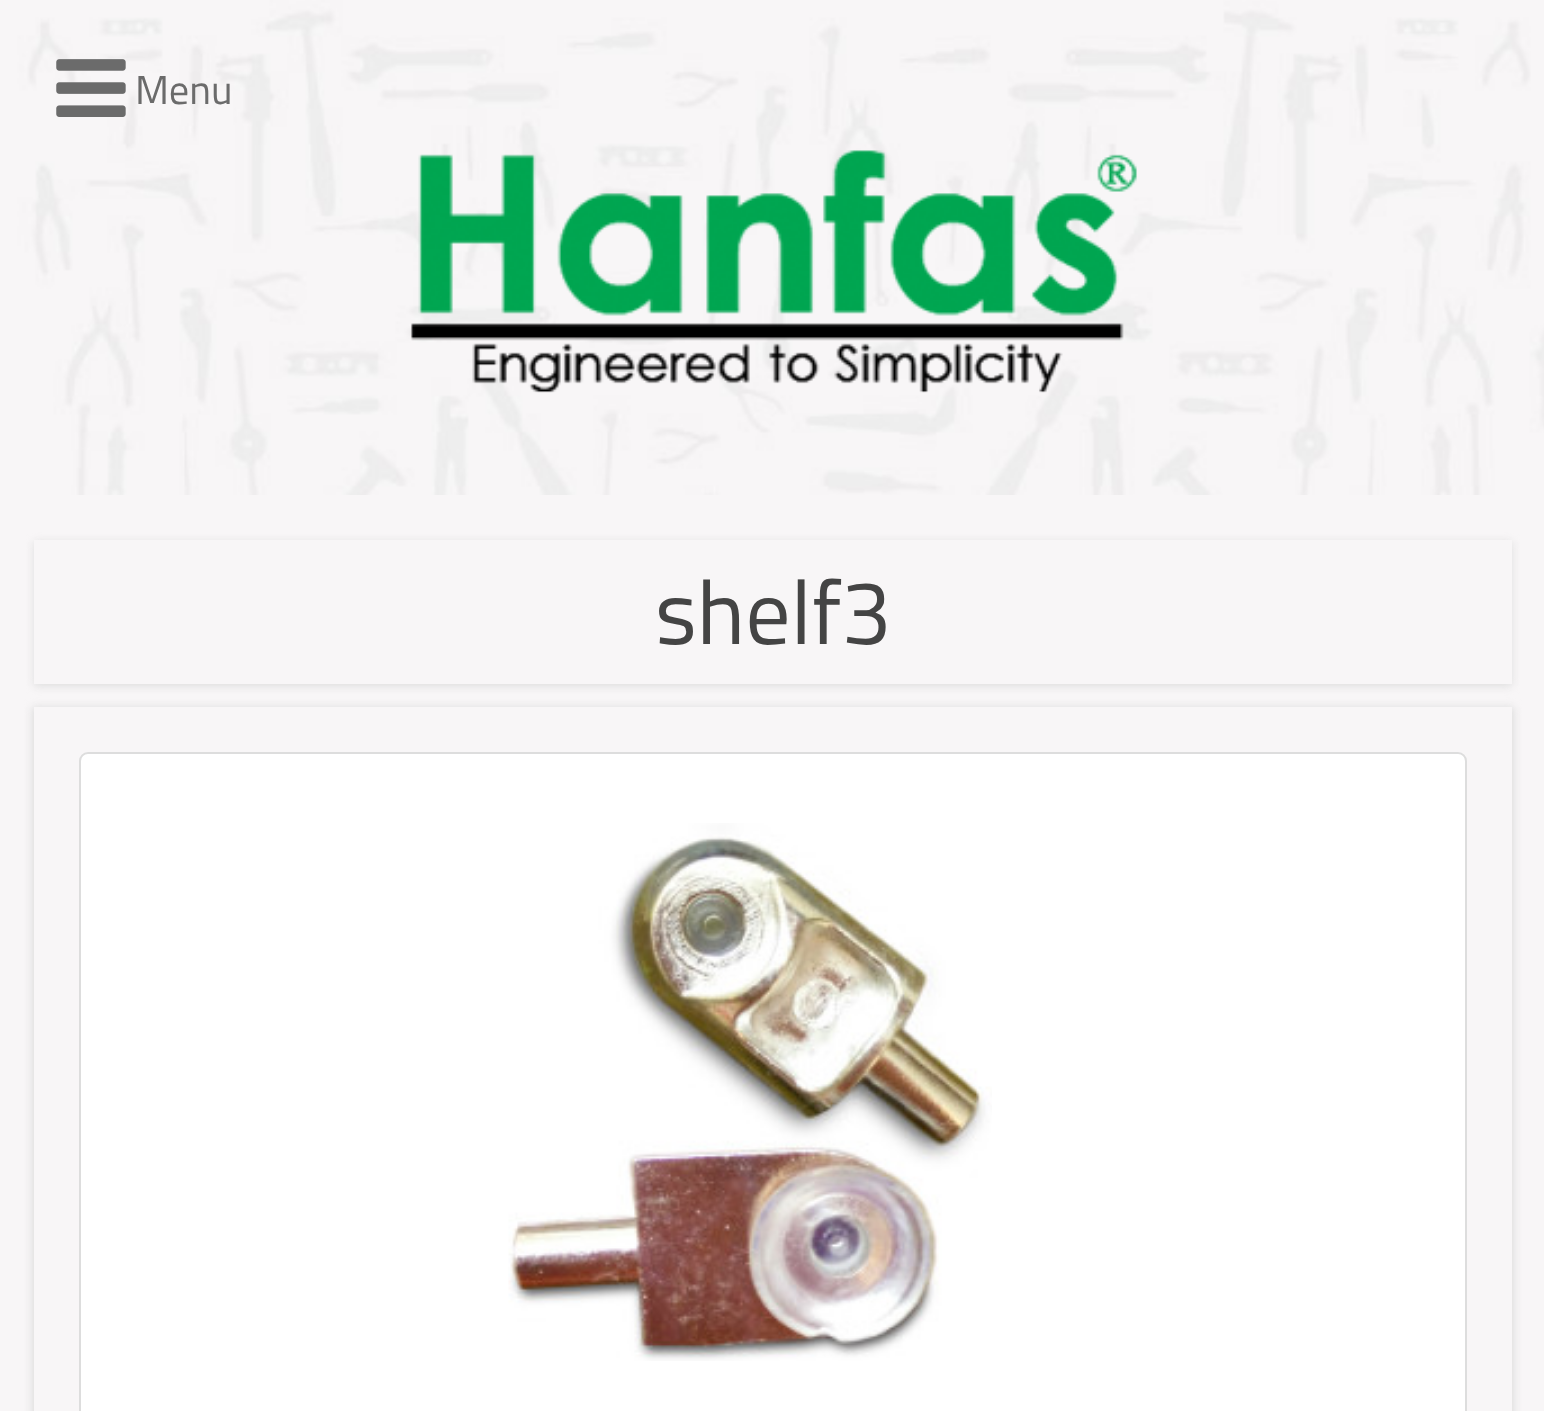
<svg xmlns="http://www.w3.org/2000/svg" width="1544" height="1411">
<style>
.a{font:40.5px Titillium Web;fill:#6b6b6b}
.b{font:90px Titillium Web;fill:#444}
</style>
<defs>
<clipPath id="clip1"><path d="M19 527h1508v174h-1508zm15 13h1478v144h-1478z" clip-rule="evenodd"/></clipPath>
<clipPath id="clip2"><path d="M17 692h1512v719h-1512zm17 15h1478v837h-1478z" clip-rule="evenodd"/></clipPath>
</defs>
<rect width="100%" height="100%" fill="#fff"/>
<image href="1.png" x="0" y="0" width="1544" height="495"/>
<image href="2.png" x="411" y="150" width="726" height="243"/>
<path fill="#f8f6f7" d="M0 495h1544v916H0z"/>
<image href="3.png" x="56" y="59" width="70" height="58"/>
<g clip-path="url(#clip1)">
<path fill="#ddd" filter="blur(4.5px)" d="M34 542h1478v144H34z"/>
</g>
<g clip-path="url(#clip2)">
<path fill="#ddd" filter="blur(4.5px)" d="M32 707h1482v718H32z"/>
</g>
<rect fill="#fff" stroke="#ddd" stroke-width="2" x="80" y="753" width="1386" height="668" rx="8"/>
<image href="4.png" x="508" y="823" width="484" height="538"/>
<text class="a" x="135" y="104">Menu</text>
<text class="b" x="655" y="644">shelf3</text>
</svg>
